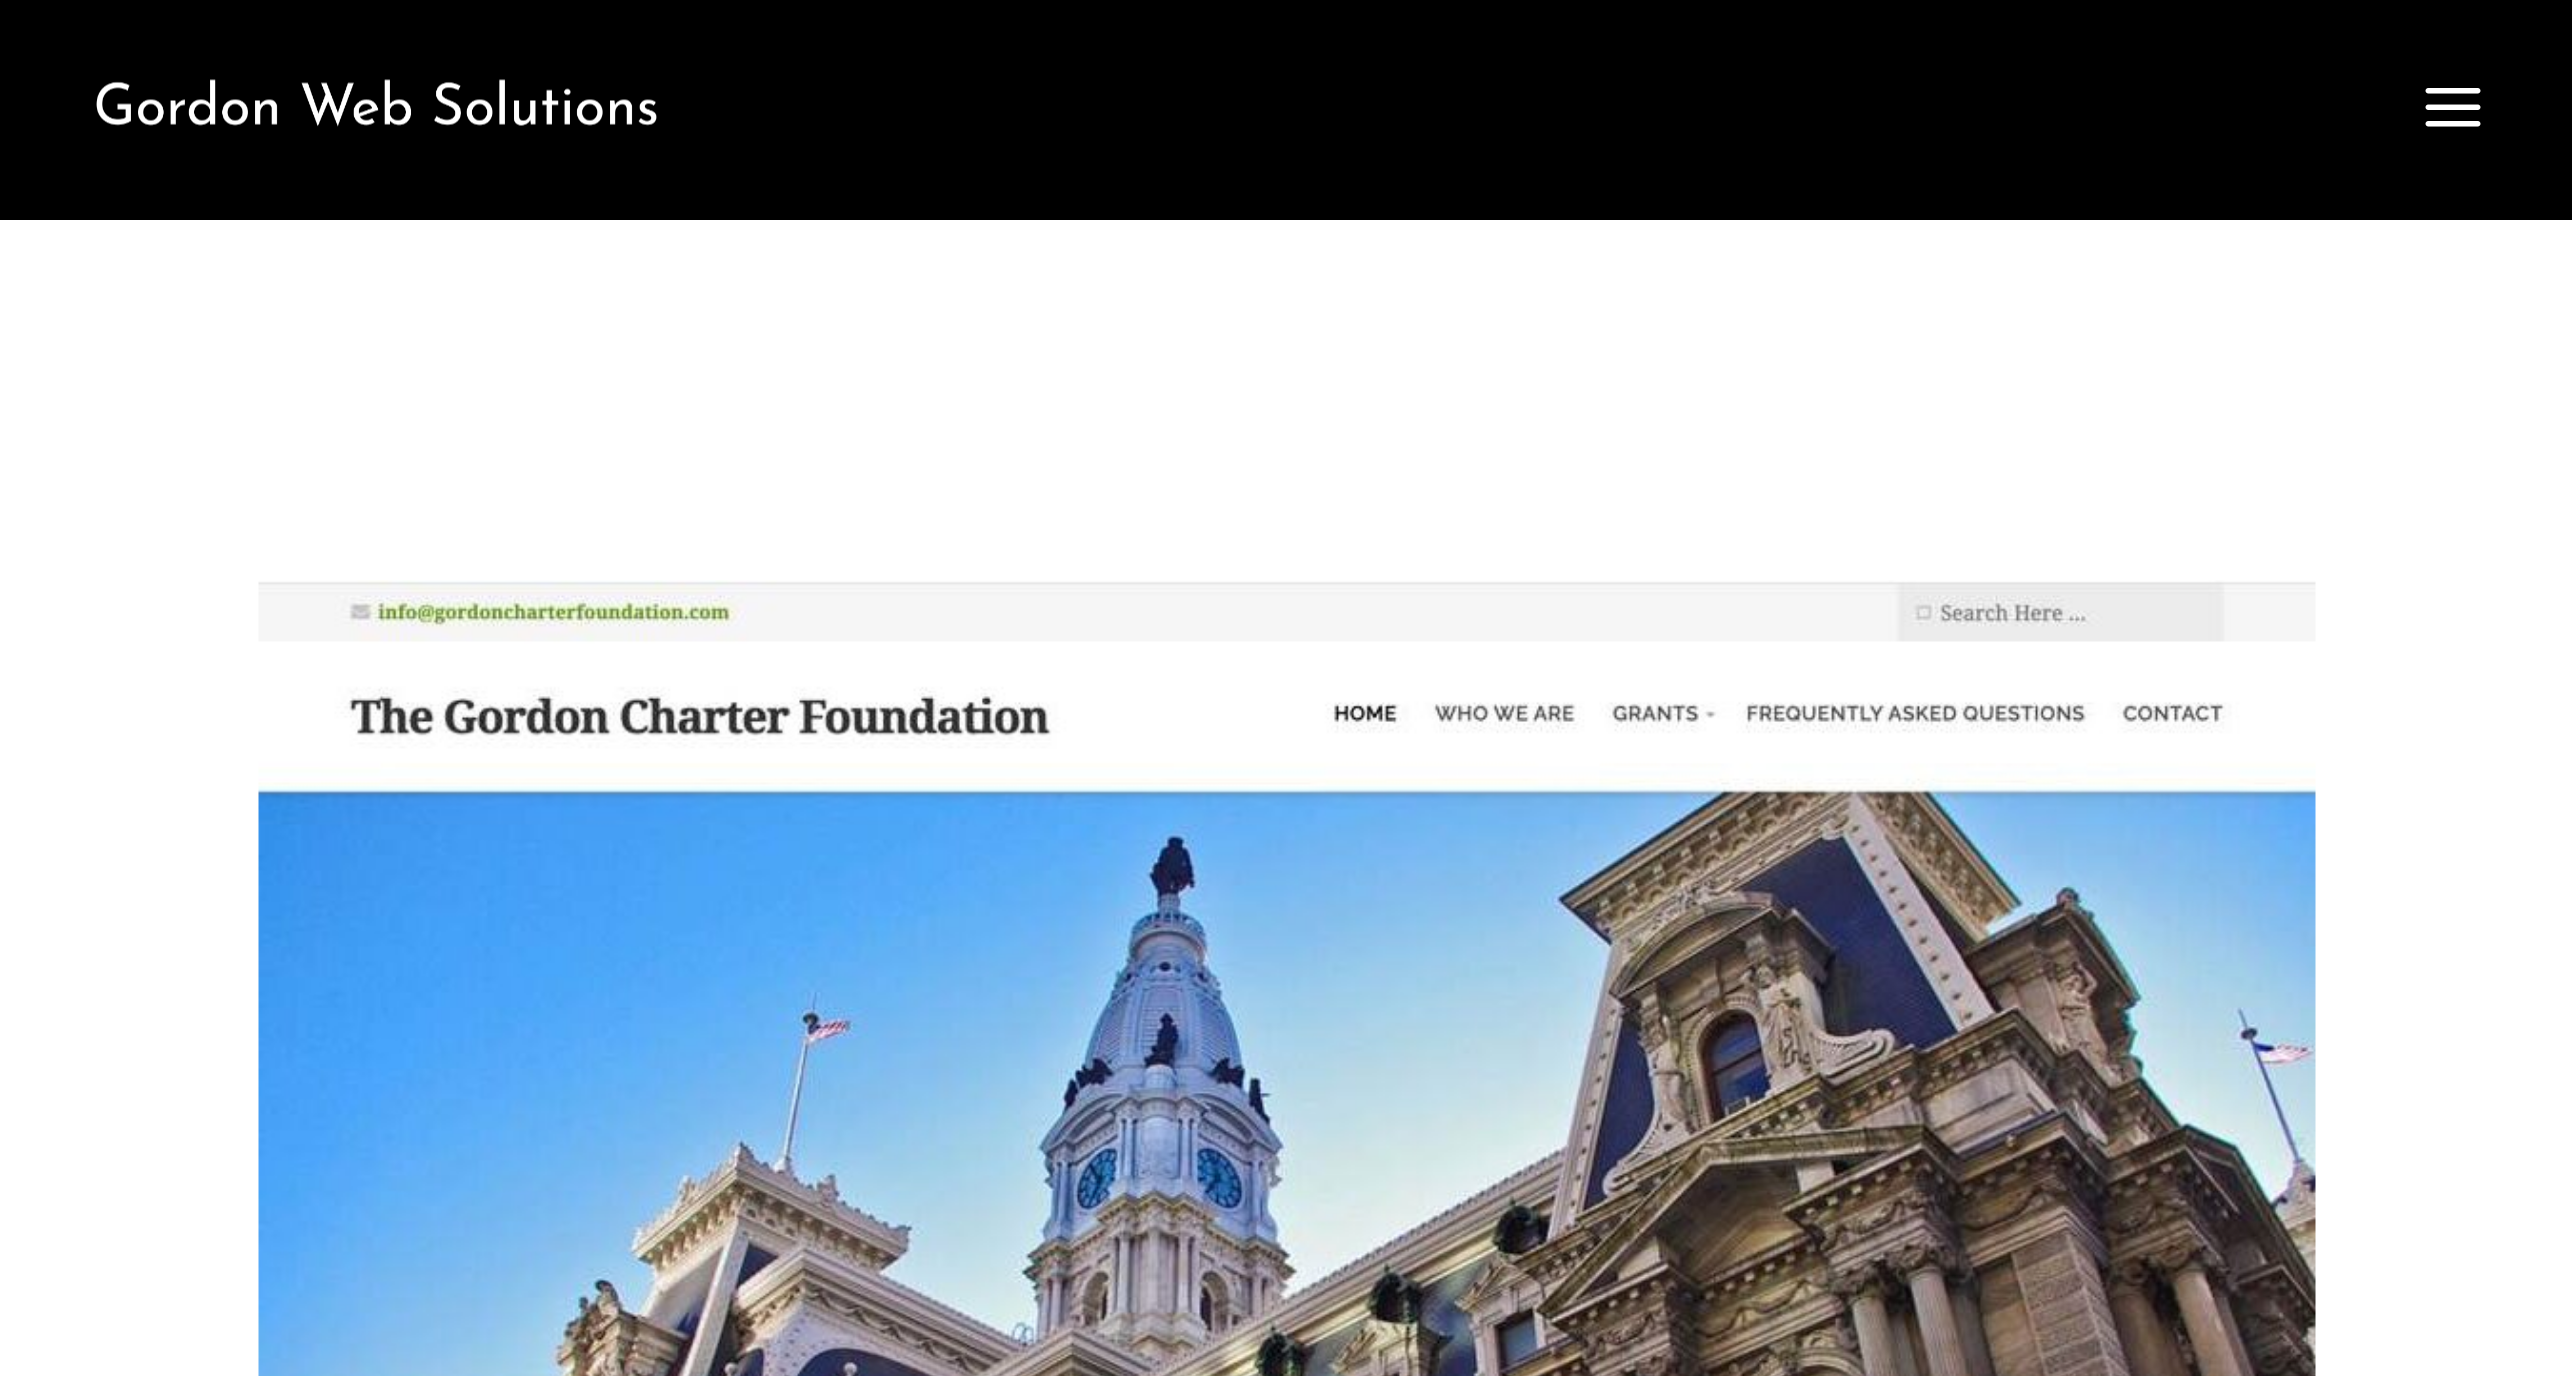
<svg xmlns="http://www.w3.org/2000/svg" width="2572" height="1376">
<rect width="100%" height="100%" fill="#fff"/>
<path fill="#000" d="M0 0h2572v220H0z"/>
<image href="1.png" x="96" y="79" width="561" height="48"/>
<image href="2.png" x="2425" y="88" width="56" height="39"/>
<image href="3.png" x="258" y="580" width="2058" height="796"/>
</svg>
